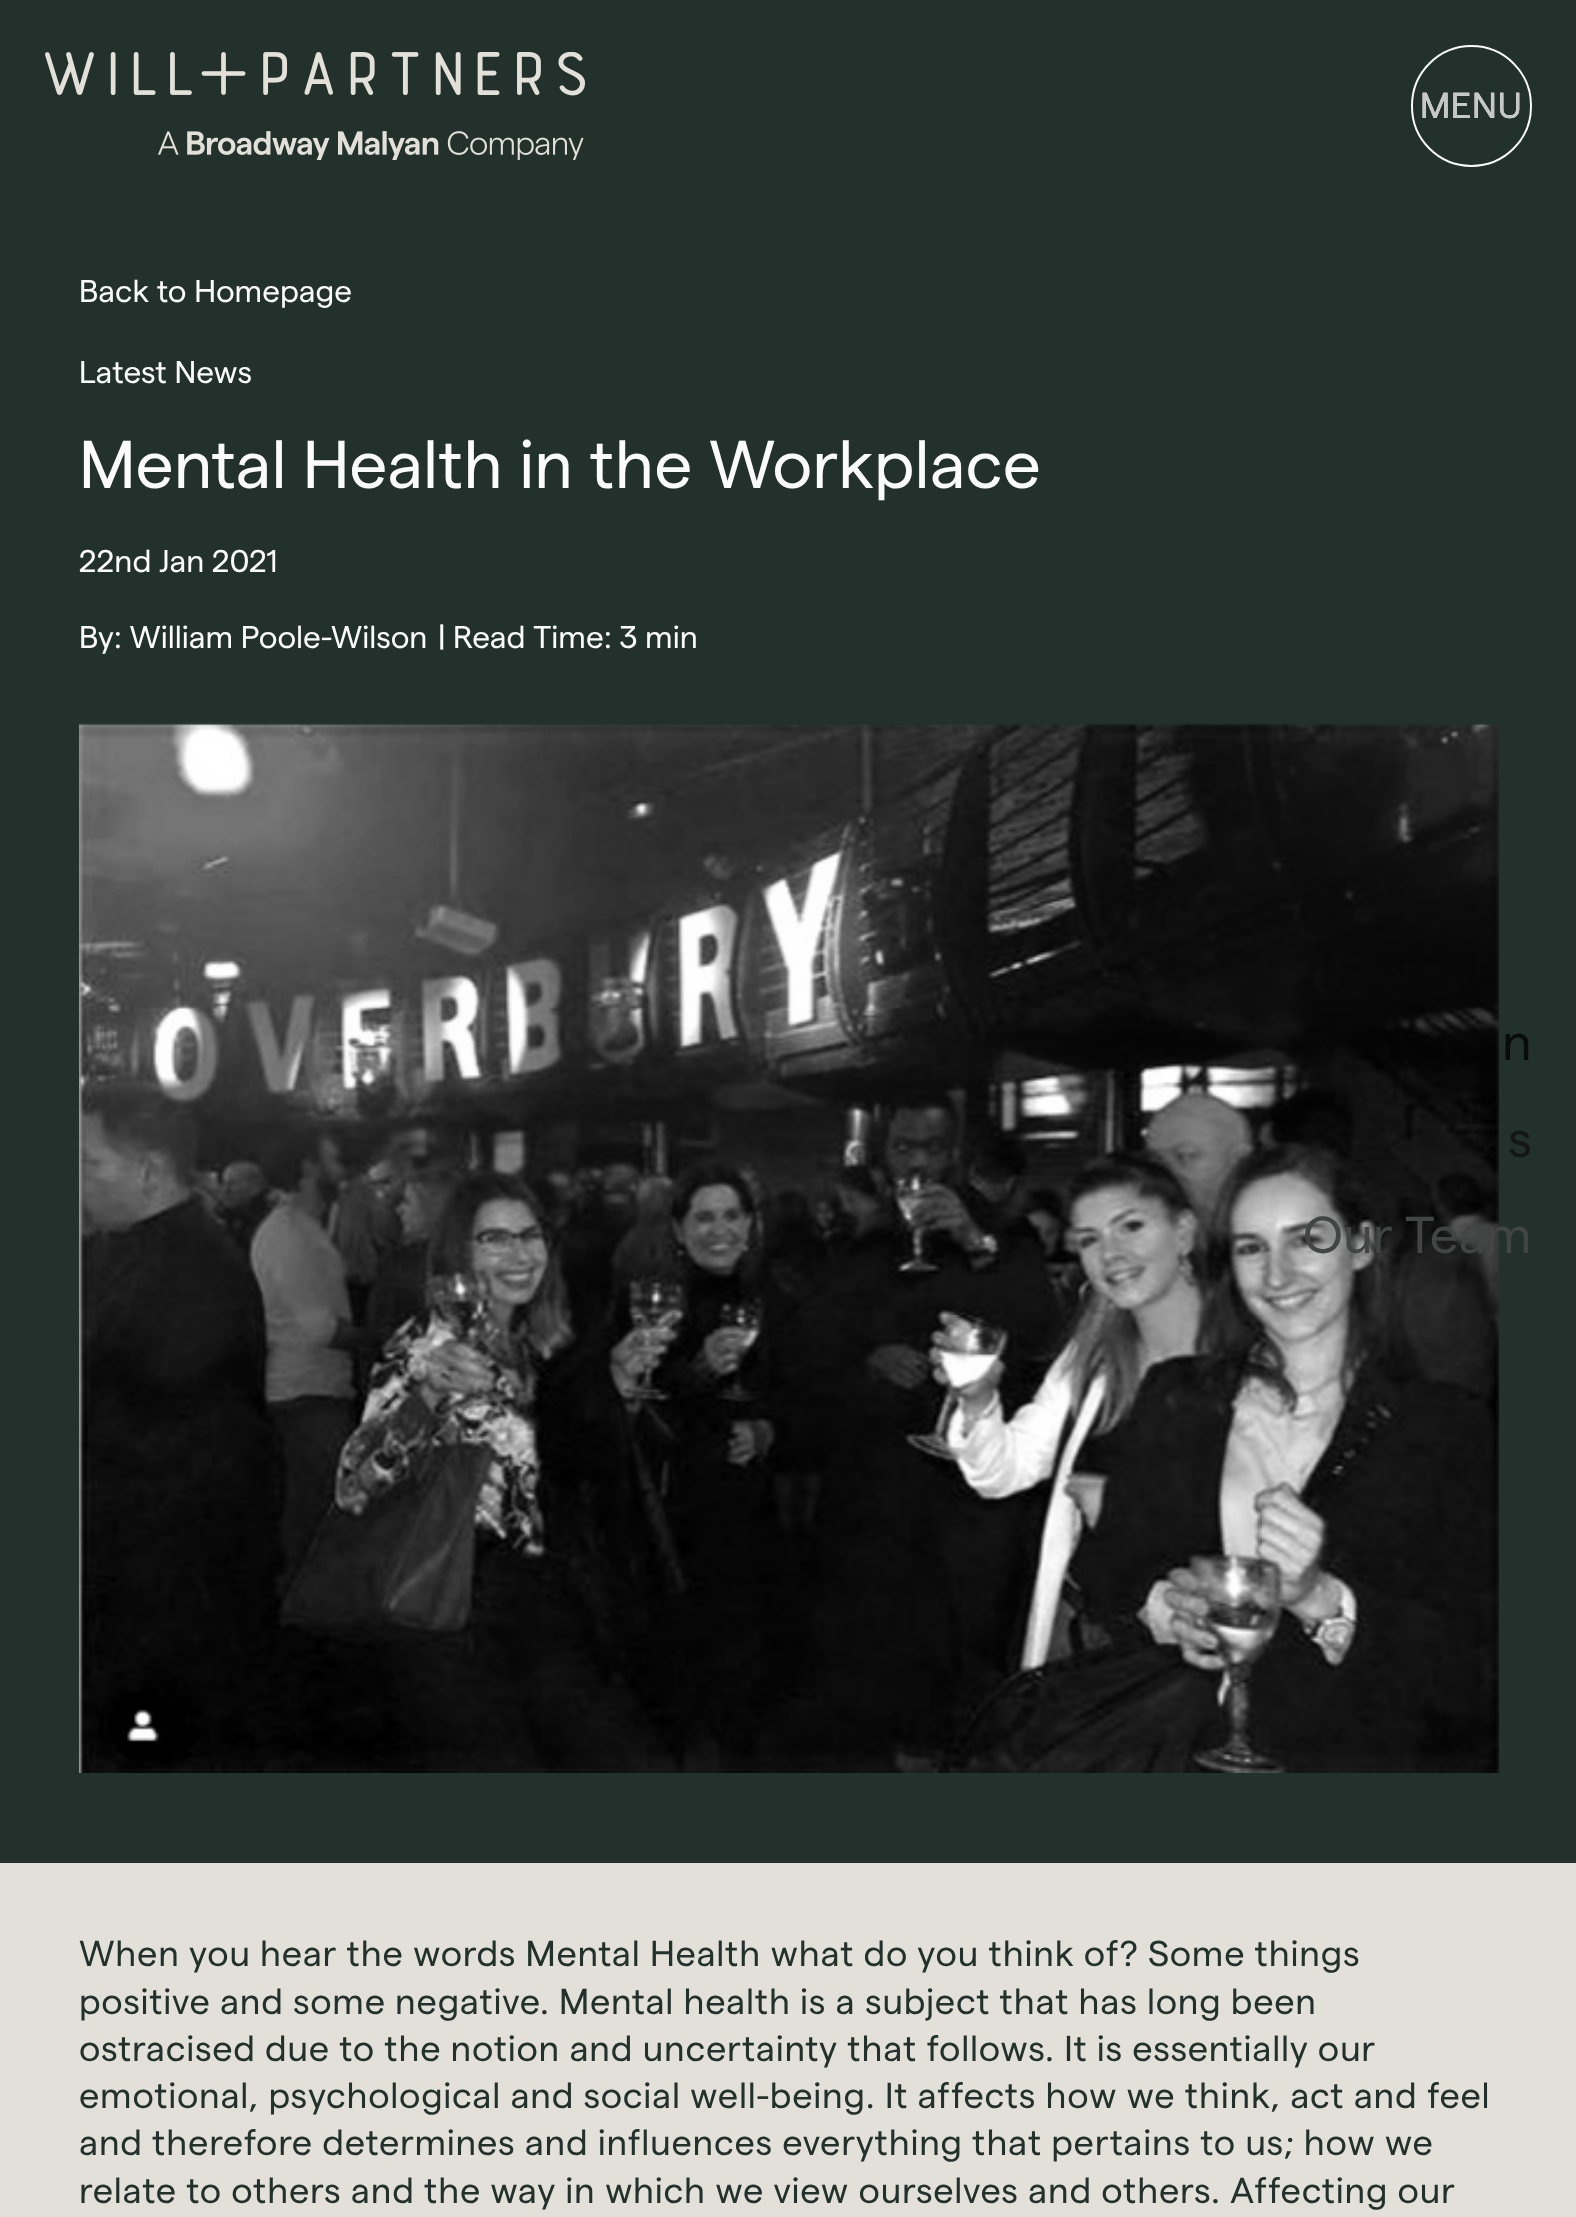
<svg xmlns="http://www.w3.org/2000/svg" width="1576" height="2217">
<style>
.a{font:51.75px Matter;fill:#0a0b0b}
.b{font:51.75px Matter;fill:#141615}
.c{font:51.75px Matter;fill:#434545}
.d{font:36px Matter;letter-spacing:0.72px;fill:#fbfbfb}
.e{font:36px Matter;letter-spacing:0.72px;fill:#c5c8c7}
.f{font:31.5px Matter;fill:#fbfbfb}
.g{font:67.5px Matter;fill:#fbfbfb}
.h{font:36px Matter;letter-spacing:0.72px;fill:#22312c}
</style>
<rect width="100%" height="100%" fill="#22312c"/>
<image href="1.png" x="45" y="52" width="540" height="44"/>
<image href="2.png" x="158" y="131" width="426" height="29"/>
<rect fill="none" stroke="#fbfbfb" stroke-width="2" x="1412" y="46" width="119" height="120" rx="59.5"/>
<image href="3.png" x="79" y="722" width="1420" height="1051"/>
<path fill="#e3e0da" d="M0 1863h1576v354H0z"/>
<text class="a" x="1502" y="1060">n</text>
<text class="b" x="1508" y="1157">s</text>
<text class="c" x="1303" y="1253">Our Team</text>
<text class="d" x="1420" y="118">MENU</text>
<text class="e" x="1420" y="118">MENU</text>
<text class="f" x="79" y="302">Back to Homepage</text>
<text class="f" x="79" y="383">Latest News</text>
<text class="g" x="79" y="488">Mental Health in the Workplace</text>
<text class="f" x="79" y="572">22nd Jan 2021</text>
<text class="f" x="79" y="648">By: William Poole-Wilson</text>
<text class="f" x="438" y="648">| Read Time: 3 min</text>
<text class="h" x="79" y="1966">When you hear the words Mental Health what do you think of? Some things</text>
<text class="h" x="79" y="2014">positive and some negative. Mental health is a subject that has long been</text>
<text class="h" x="79" y="2061">ostracised due to the notion and uncertainty that follows. It is essentially our</text>
<text class="h" x="79" y="2108">emotional, psychological and social well-being. It affects how we think, act and feel</text>
<text class="h" x="79" y="2155">and therefore determines and influences everything that pertains to us; how we</text>
<text class="h" x="79" y="2203">relate to others and the way in which we view ourselves and others. Affecting our</text>
</svg>
